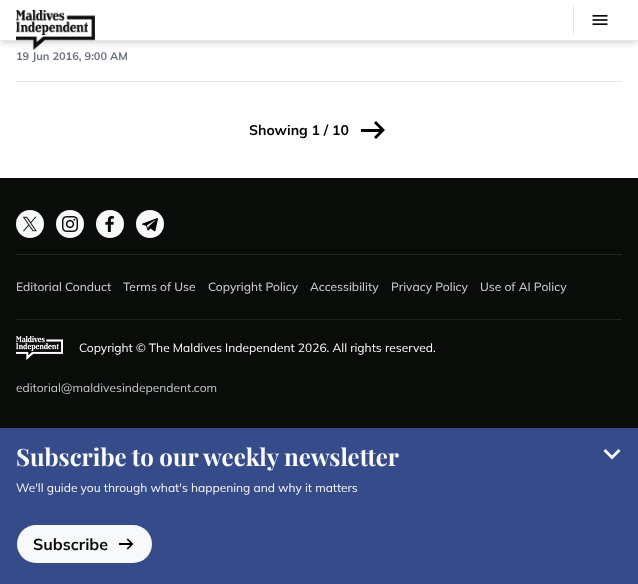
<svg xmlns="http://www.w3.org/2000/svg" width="638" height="584">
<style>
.a{font:bold 11px Mulish;fill:#6b7280}
.b{font:bold 14px Mulish;fill:#000}
.c{font:500 12px Mulish;fill:#c8caca}
.d{font:12px Mulish;fill:#fff}
.e{font:12px Mulish;fill:#c8caca}
.f{font:bold 24px Playfair Display;fill:#f8f9fa}
.g{font:12px Mulish;fill:#f8f9fa}
.h{font:bold 16px Mulish;fill:#090c08}
</style>
<rect width="100%" height="100%" fill="#fff"/>
<path fill="#0000001a" filter="blur(2px)" d="M2 4h634v37H2z"/>
<path fill="#0000001a" filter="blur(3px)" d="M1 5h636v39H1z"/>
<path fill="#fff" d="M0 0h638v40H0z"/>
<path fill="#e5e7eb" d="M0 40h638v1H0z"/>
<circle fill="#f8f9fa" cx="38" cy="18" r="4"/>
<image href="1.png" x="16" y="10" width="79" height="40"/>
<path fill="#e5e7eb" d="M573 6h1v28H573z"/>
<image href="2.png" x="592" y="15" width="16" height="10"/>
<path fill="#e5e7eb" d="M16 81h606v1H16z"/>
<path fill="#000" d="M361 129h21v3H361z"/>
<path fill="#000" d="M376 139l-2-2l7-7l-7-7l2-2l9 9z"/>
<path fill="#090c08" d="M0 178h638v250H0z"/>
<path fill="#212420" d="M16 254h606v1H16z"/>
<circle fill="#f8f9fa" cx="30" cy="224" r="14"/>
<image href="3.png" x="22" y="216" width="15" height="16"/>
<circle fill="#f8f9fa" cx="70" cy="224" r="14"/>
<image href="4.png" x="62" y="216" width="16" height="16"/>
<circle fill="#f8f9fa" cx="110" cy="224" r="14"/>
<image href="5.png" x="105" y="216" width="9" height="16"/>
<circle fill="#f8f9fa" cx="150" cy="224" r="14"/>
<image href="6.png" x="142" y="218" width="16" height="14"/>
<path fill="#212420" d="M16 319h606v1H16z"/>
<image href="7.png" x="16" y="336" width="47" height="24"/>
<path fill="#364b89" d="M0 428h638v156H0z"/>
<rect fill="#f8f9fa" x="17" y="525" width="135" height="38" rx="19"/>
<image href="8.png" x="119" y="538" width="15" height="12"/>
<path fill="#f8f9fa" d="M618.5 449l-6.5 6.5l-6.5-6.5l-2 2l8.5 8.5l8.5-8.5z"/>
<text class="a" x="16" y="60">19 Jun 2016, 9:00 AM</text>
<text class="b" x="249" y="135">Showing 1 / 10</text>
<text class="c" x="16" y="291">Editorial Conduct</text>
<text class="c" x="123" y="291">Terms of Use</text>
<text class="c" x="208" y="291">Copyright Policy</text>
<text class="c" x="310" y="291">Accessibility</text>
<text class="c" x="391" y="291">Privacy Policy</text>
<text class="c" x="480" y="291">Use of AI Policy</text>
<text class="d" x="79" y="352">Copyright © The Maldives Independent 2026. All rights reserved.</text>
<text class="e" x="16" y="392">editorial@maldivesindependent.com</text>
<text class="f" x="16" y="466">Subscribe to our weekly newsletter</text>
<text class="g" x="16" y="492">We'll guide you through what's happening and why it matters</text>
<text class="h" x="33" y="550">Subscribe</text>
</svg>
